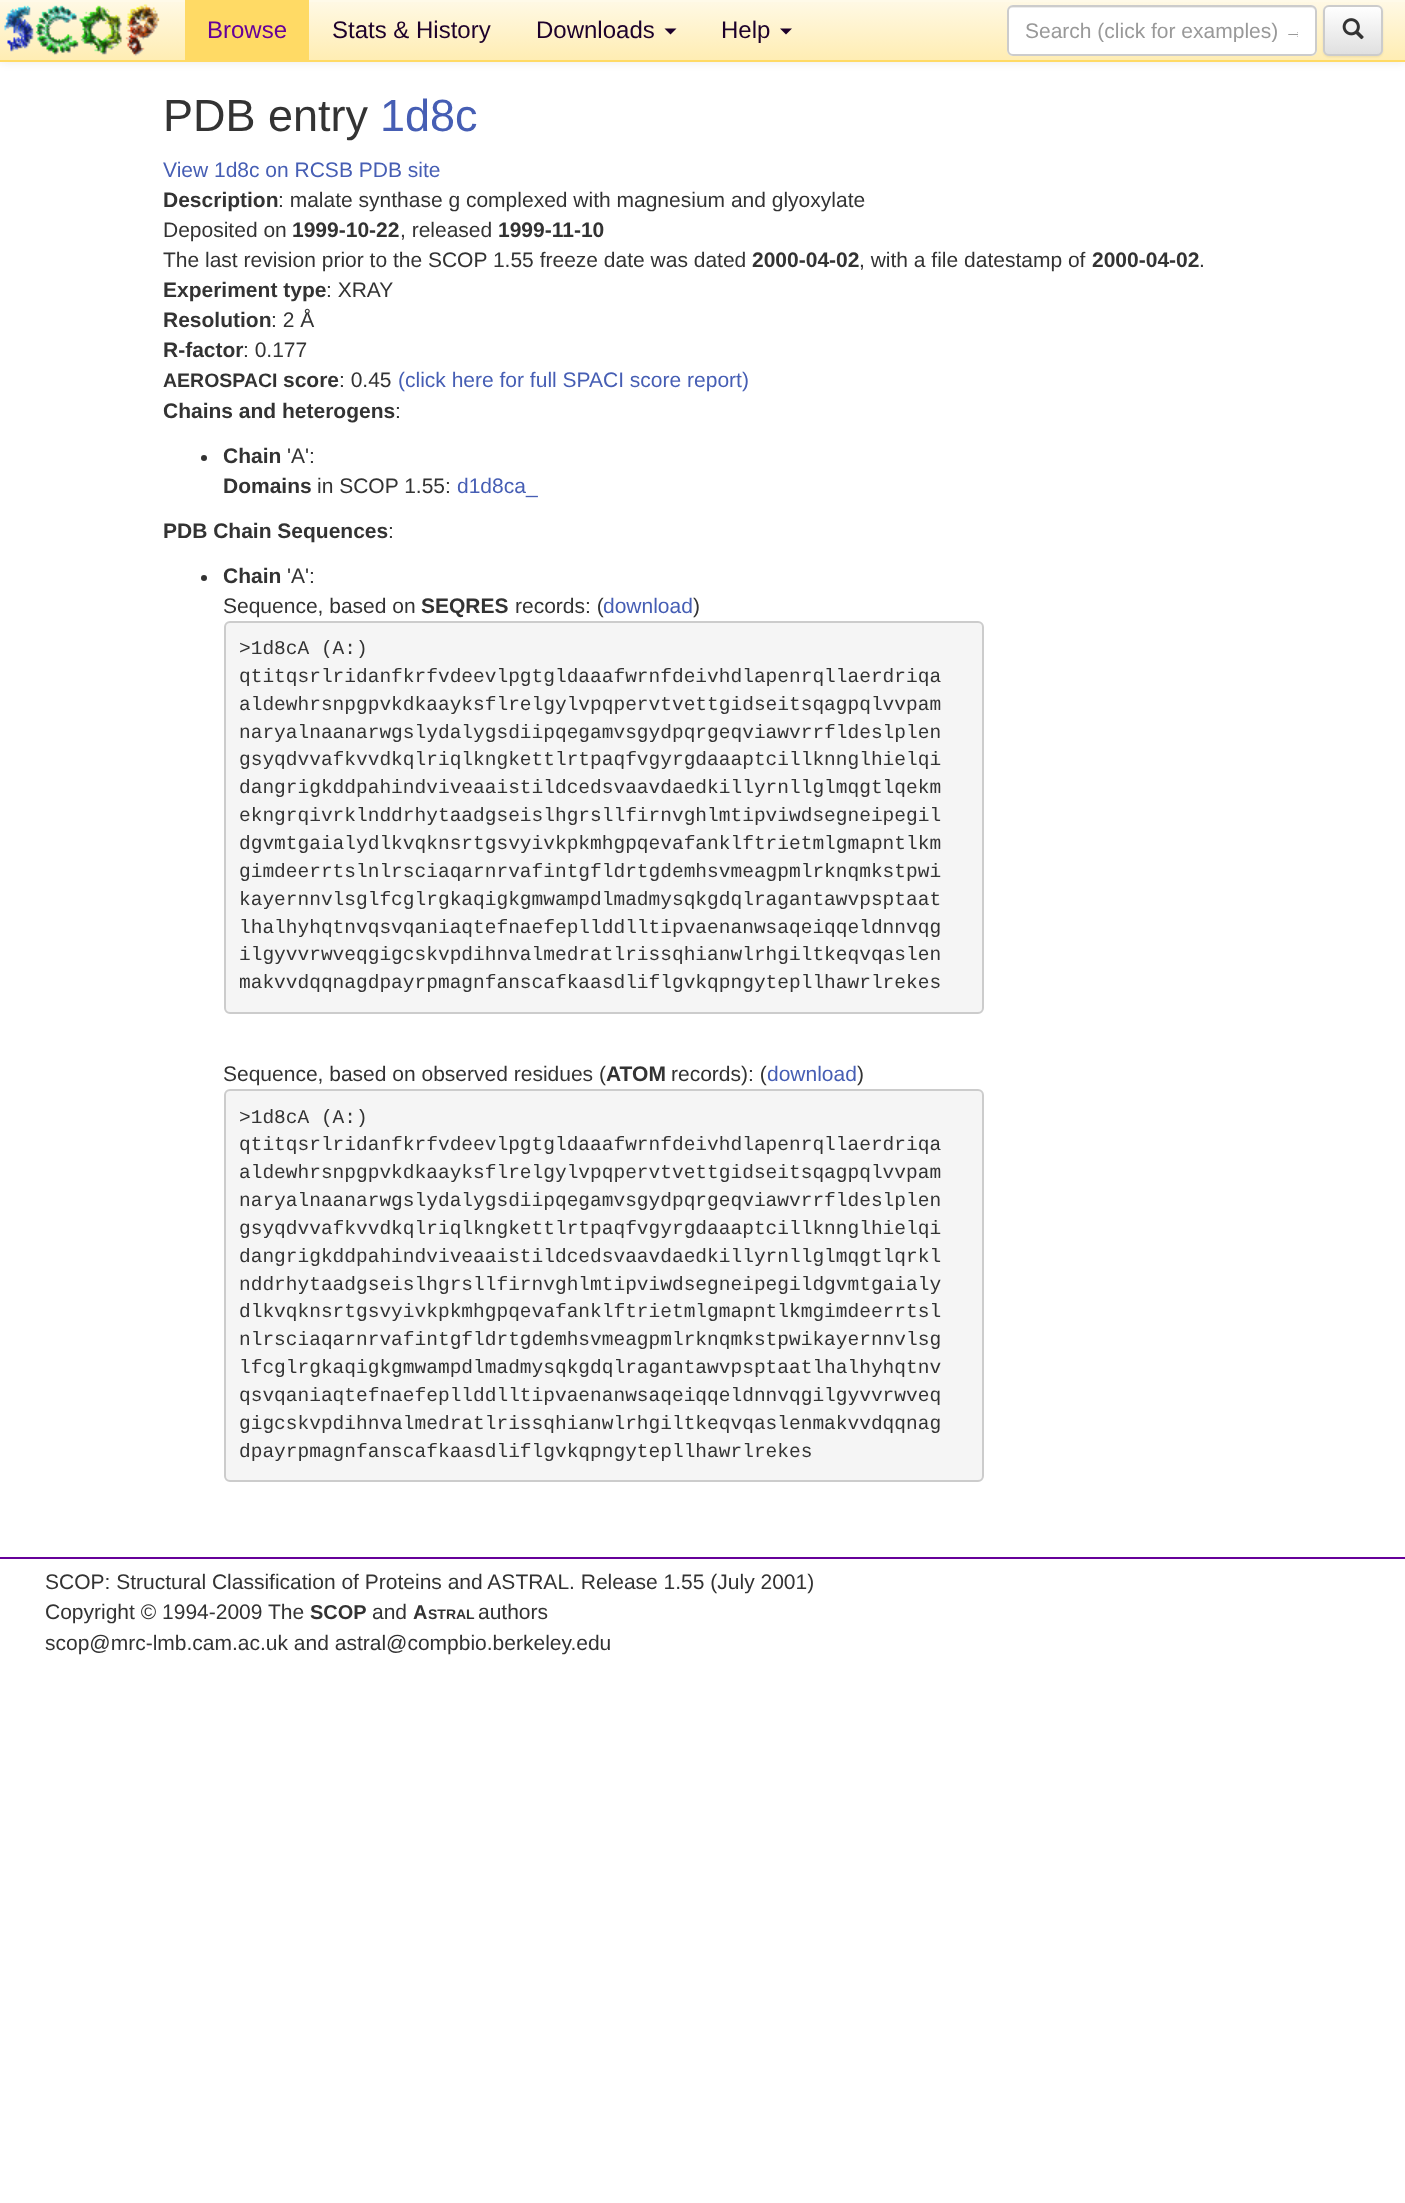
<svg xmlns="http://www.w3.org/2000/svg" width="1405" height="2203">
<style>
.a{font:24px Liberation Sans;fill:#609}
.b{font:24px Liberation Sans;fill:#1d002b}
.c{font:21px Liberation Sans;fill:#999}
.d{font:45px Liberation Sans;fill:#333}
.e{font:45px Liberation Sans;fill:#465eb4}
.f{font:21px Liberation Sans;fill:#465eb4}
.g{font:bold 21px Liberation Sans;fill:#333}
.h{font:21px Liberation Sans;fill:#333}
.i{font:bold 19.5px Liberation Sans;fill:#333}
.j{font:19.5px Liberation Mono;fill:#333}
.k{font:bold 20px Liberation Sans;fill:#333}
.l{font:bold 14px Liberation Sans;fill:#333}
</style>
<defs>
<linearGradient id="g1" gradientUnits="userSpaceOnUse" x1="703" y1="0" x2="703" y2="60"><stop offset="0" stop-color="#fff9e6"/><stop offset="1" stop-color="#ffedb3"/></linearGradient>
<clipPath id="clip1"><rect x="1323" y="5" width="60" height="51" rx="6"/></clipPath>
<linearGradient id="g2" gradientUnits="userSpaceOnUse" x1="1353" y1="6" x2="1353" y2="54"><stop offset="0" stop-color="#fff"/><stop offset="1" stop-color="#e0e0e0"/></linearGradient>
<clipPath id="clip2"><path d="M1026 18h272v24H1026z"/></clipPath>
</defs>
<rect width="100%" height="100%" fill="#fff"/>
<path fill="#00000012" filter="blur(4px)" d="M0 2h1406v61H0z"/>
<path fill="url(#g1)" d="M0 2h1405v58H0z"/>
<path fill="#fffae9" d="M0 0h1405v2H0z"/>
<path fill="#ffda65" d="M0 60h1405v2H0z"/>
<image href="1.png" x="4" y="4" width="156" height="52"/>
<path fill="#ffda65" d="M185 0h124v60H185z"/>
<path fill="#1d002b" d="M664.5 28.5h12l-6 6z"/>
<path fill="#1d002b" d="M780 28.5h12l-6 6z"/>
<rect fill="#fff" x="1007" y="5" width="310" height="51" rx="6"/>
<path fill="#ececec" d="M1012 8h299c2 0 5 2 5 4c0-3-2-6-5-6h-298c-3 0-5 3-5 6c0-2 2-4 4-4z"/>
<rect fill="none" stroke="#ccc" stroke-width="2" x="1008" y="6" width="308" height="49" rx="5"/>
<rect fill="#00000012" filter="blur(1px)" x="1323" y="6" width="60" height="51" rx="6"/>
<g clip-path="url(#clip1)">
<path fill="url(#g2)" d="M1323 6h60v48H1323z"/>
</g>
<rect fill="none" stroke="#ccc" stroke-width="2" x="1324" y="6" width="58" height="49" rx="5"/>
<image href="2.png" x="1342" y="18" width="22" height="22"/>
<circle fill="#333" cx="204" cy="458" r="3"/>
<circle fill="#333" cx="204" cy="578" r="3"/>
<rect fill="#f5f5f5" stroke="#ccc" stroke-width="2" x="225" y="622" width="758" height="391" rx="5"/>
<rect fill="#f5f5f5" stroke="#ccc" stroke-width="2" x="225" y="1090" width="758" height="391" rx="5"/>
<path fill="#609" d="M0 1557h1405v2H0z"/>
<text class="a" x="207" y="38">Browse</text>
<text class="b" x="332" y="38">Stats &amp; History</text>
<text class="b" x="536" y="38">Downloads</text>
<text class="b" x="721" y="38">Help</text>
<g clip-path="url(#clip2)">
<text class="c" x="1025" y="38">Search (click for examples) →</text>
</g>
<text class="d" x="163" y="131">PDB entry</text>
<text class="e" x="380" y="131">1d8c</text>
<text class="f" x="163" y="177">View 1d8c on RCSB PDB site</text>
<text class="g" x="163" y="207">Description</text>
<text class="h" x="278" y="207">: malate synthase g complexed with magnesium and glyoxylate</text>
<text class="h" x="163" y="237">Deposited on</text>
<text class="g" x="292" y="237">1999-10-22</text>
<text class="h" x="400" y="237">, released</text>
<text class="g" x="498" y="237">1999-11-10</text>
<text class="h" x="163" y="267">The last revision prior to the SCOP 1.55 freeze date was dated</text>
<text class="g" x="752" y="267">2000-04-02</text>
<text class="h" x="859" y="267">, with a file datestamp of</text>
<text class="g" x="1092" y="267">2000-04-02</text>
<text class="h" x="1199" y="267">.</text>
<text class="g" x="163" y="297">Experiment type</text>
<text class="h" x="326" y="297">: XRAY</text>
<text class="g" x="163" y="327">Resolution</text>
<text class="h" x="271" y="327">: 2 Å</text>
<text class="g" x="163" y="357">R-factor</text>
<text class="h" x="243" y="357">: 0.177</text>
<text class="i" x="163" y="387">AEROSPACI</text>
<text class="g" x="283" y="387">score</text>
<text class="h" x="339" y="387">: 0.45</text>
<text class="f" x="398" y="387">(click here for full SPACI score report)</text>
<text class="g" x="163" y="418">Chains and heterogens</text>
<text class="h" x="395" y="418">:</text>
<text class="g" x="223" y="463">Chain</text>
<text class="h" x="287" y="463">'A':</text>
<text class="g" x="223" y="493">Domains</text>
<text class="h" x="317" y="493">in SCOP 1.55:</text>
<text class="f" x="457" y="493">d1d8ca_</text>
<text class="g" x="163" y="538">PDB Chain Sequences</text>
<text class="h" x="388" y="538">:</text>
<text class="g" x="223" y="583">Chain</text>
<text class="h" x="287" y="583">'A':</text>
<text class="h" x="223" y="613">Sequence, based on</text>
<text class="g" x="421" y="613">SEQRES</text>
<text class="h" x="515" y="613">records: (</text>
<text class="f" x="603" y="613">download</text>
<text class="h" x="693" y="613">)</text>
<text class="j" x="239" y="654">&gt;1d8cA (A:)</text>
<text class="j" x="239" y="682">qtitqsrlridanfkrfvdeevlpgtgldaaafwrnfdeivhdlapenrqllaerdriqa</text>
<text class="j" x="239" y="710">aldewhrsnpgpvkdkaayksflrelgylvpqpervtvettgidseitsqagpqlvvpam</text>
<text class="j" x="239" y="738">naryalnaanarwgslydalygsdiipqegamvsgydpqrgeqviawvrrfldeslplen</text>
<text class="j" x="239" y="765">gsyqdvvafkvvdkqlriqlkngkettlrtpaqfvgyrgdaaaptcillknnglhielqi</text>
<text class="j" x="239" y="793">dangrigkddpahindviveaaistildcedsvaavdaedkillyrnllglmqgtlqekm</text>
<text class="j" x="239" y="821">ekngrqivrklnddrhytaadgseislhgrsllfirnvghlmtipviwdsegneipegil</text>
<text class="j" x="239" y="849">dgvmtgaialydlkvqknsrtgsvyivkpkmhgpqevafanklftrietmlgmapntlkm</text>
<text class="j" x="239" y="877">gimdeerrtslnlrsciaqarnrvafintgfldrtgdemhsvmeagpmlrknqmkstpwi</text>
<text class="j" x="239" y="905">kayernnvlsglfcglrgkaqigkgmwampdlmadmysqkgdqlragantawvpsptaat</text>
<text class="j" x="239" y="933">lhalhyhqtnvqsvqaniaqtefnaefepllddlltipvaenanwsaqeiqqeldnnvqg</text>
<text class="j" x="239" y="960">ilgyvvrwveqgigcskvpdihnvalmedratlrissqhianwlrhgiltkeqvqaslen</text>
<text class="j" x="239" y="988">makvvdqqnagdpayrpmagnfanscafkaasdliflgvkqpngytepllhawrlrekes</text>
<text class="h" x="223" y="1081">Sequence, based on observed residues (</text>
<text class="g" x="606" y="1081">ATOM</text>
<text class="h" x="671" y="1081">records): (</text>
<text class="f" x="767" y="1081">download</text>
<text class="h" x="857" y="1081">)</text>
<text class="j" x="239" y="1123">&gt;1d8cA (A:)</text>
<text class="j" x="239" y="1150">qtitqsrlridanfkrfvdeevlpgtgldaaafwrnfdeivhdlapenrqllaerdriqa</text>
<text class="j" x="239" y="1178">aldewhrsnpgpvkdkaayksflrelgylvpqpervtvettgidseitsqagpqlvvpam</text>
<text class="j" x="239" y="1206">naryalnaanarwgslydalygsdiipqegamvsgydpqrgeqviawvrrfldeslplen</text>
<text class="j" x="239" y="1234">gsyqdvvafkvvdkqlriqlkngkettlrtpaqfvgyrgdaaaptcillknnglhielqi</text>
<text class="j" x="239" y="1262">dangrigkddpahindviveaaistildcedsvaavdaedkillyrnllglmqgtlqrkl</text>
<text class="j" x="239" y="1290">nddrhytaadgseislhgrsllfirnvghlmtipviwdsegneipegildgvmtgaialy</text>
<text class="j" x="239" y="1317">dlkvqknsrtgsvyivkpkmhgpqevafanklftrietmlgmapntlkmgimdeerrtsl</text>
<text class="j" x="239" y="1345">nlrsciaqarnrvafintgfldrtgdemhsvmeagpmlrknqmkstpwikayernnvlsg</text>
<text class="j" x="239" y="1373">lfcglrgkaqigkgmwampdlmadmysqkgdqlragantawvpsptaatlhalhyhqtnv</text>
<text class="j" x="239" y="1401">qsvqaniaqtefnaefepllddlltipvaenanwsaqeiqqeldnnvqgilgyvvrwveq</text>
<text class="j" x="239" y="1429">gigcskvpdihnvalmedratlrissqhianwlrhgiltkeqvqaslenmakvvdqqnag</text>
<text class="j" x="239" y="1457">dpayrpmagnfanscafkaasdliflgvkqpngytepllhawrlrekes</text>
<text class="h" x="45" y="1589">SCOP: Structural Classification of Proteins and ASTRAL. Release 1.55 (July 2001)</text>
<text class="h" x="45" y="1619">Copyright © 1994-2009 The</text>
<text class="k" x="310" y="1619">SCOP</text>
<text class="h" x="372" y="1619">and</text>
<text class="k" x="413" y="1619">A</text>
<text class="l" x="428" y="1619">STRAL</text>
<text class="h" x="478" y="1619">authors</text>
<text class="h" x="45" y="1650">scop@mrc-lmb.cam.ac.uk and astral@compbio.berkeley.edu</text>
</svg>
